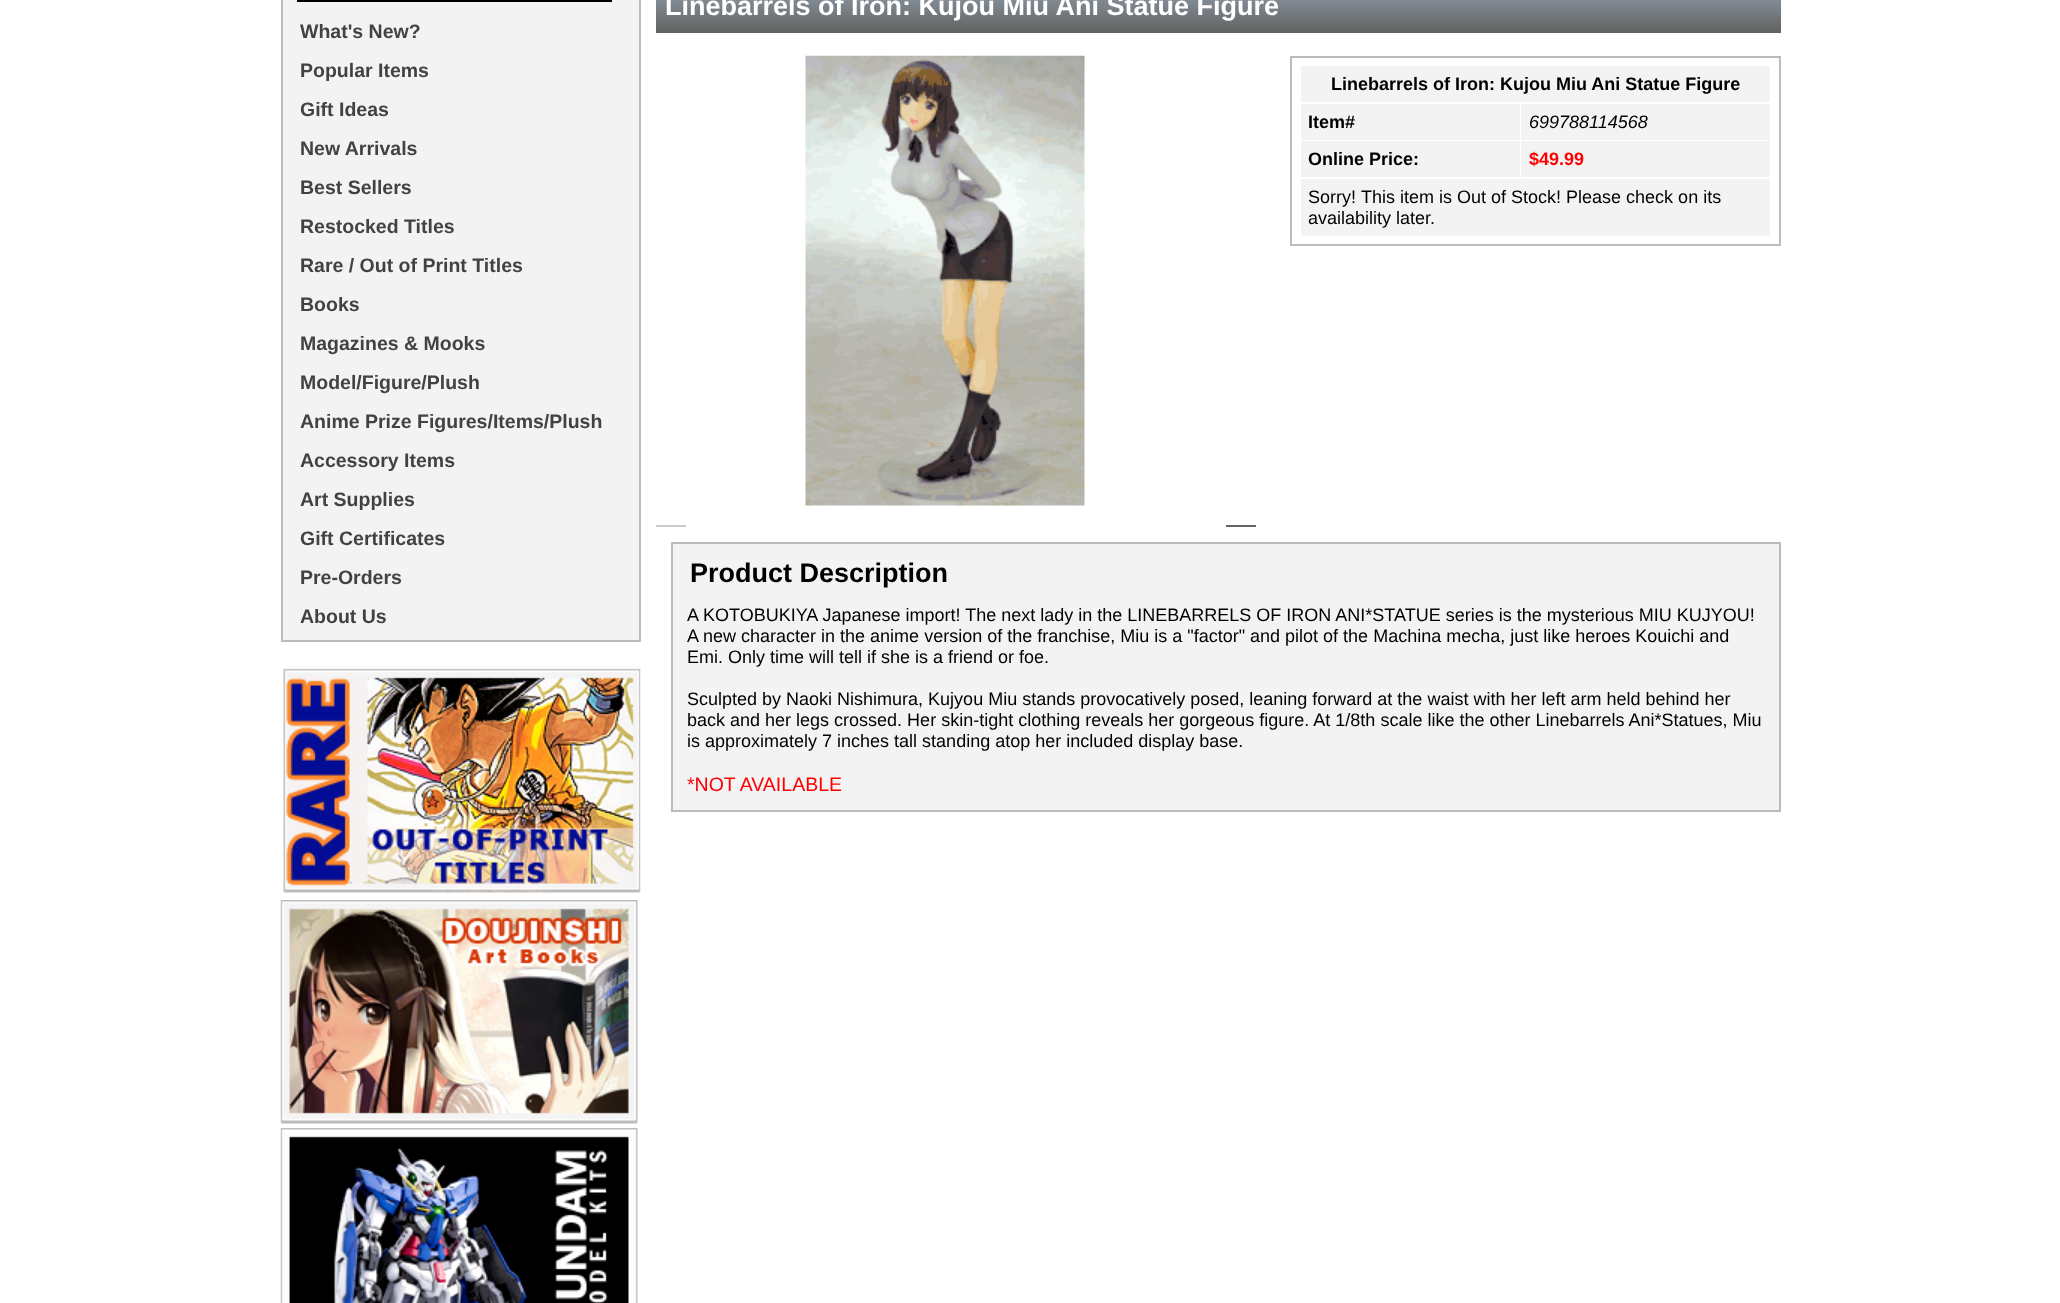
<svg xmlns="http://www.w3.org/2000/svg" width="2060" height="1303">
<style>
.a{font:bold 19.5px Liberation Sans;fill:#424242}
.b{font:bold 27px Liberation Sans;fill:#fff}
.c{font:bold 18px Liberation Sans;fill:#000}
.d{font:italic 18px Liberation Sans;fill:#000}
.e{font:bold 18px Liberation Sans;fill:#f00}
.f{font:18px Liberation Sans;fill:#000}
.g{font:bold 27px Liberation Sans;fill:#000}
.h{font:19.5px Liberation Sans;fill:#f00}
</style>
<defs>
<linearGradient id="g1" gradientUnits="userSpaceOnUse" x1="1218" y1="-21" x2="1218" y2="33"><stop offset="0" stop-color="#b5bdc8"/><stop offset="0.36" stop-color="#828c95"/><stop offset="1" stop-color="#626262"/></linearGradient>
</defs>
<rect width="100%" height="100%" fill="#fff"/>
<path fill="#f3f3f4" stroke="#bcbcbc" stroke-width="2" d="M282 -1h358v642H282z"/>
<path fill="#000" d="M297 0h315v2H297z"/>
<image href="1.png" x="283" y="668" width="358" height="225"/>
<image href="2.png" x="280" y="900" width="358" height="224"/>
<image href="3.png" x="280" y="1128" width="358" height="175"/>
<path fill="url(#g1)" d="M656 0h1125v33H656z"/>
<image href="4.png" x="805" y="55" width="280" height="451"/>
<path fill="#ccc" d="M656 525h30v2H656z"/>
<path fill="#666" d="M1226 525h30v2H1226z"/>
<path fill="none" stroke="#bcbcbc" stroke-width="2" d="M1291 57h489v188H1291z"/>
<path fill="#f3f3f3" d="M1301 66h469v36H1301z"/>
<path fill="#f3f3f3" d="M1301 104h219v36H1301z"/>
<path fill="#f3f3f3" d="M1521 104h249v36H1521z"/>
<path fill="#f3f3f3" d="M1301 141h219v36H1301z"/>
<path fill="#f3f3f3" d="M1521 141h249v36H1521z"/>
<path fill="#f3f3f3" d="M1301 179h469v57H1301z"/>
<path fill="#f3f3f4" stroke="#bcbcbc" stroke-width="2" d="M672 543h1108v268H672z"/>
<text class="a" x="300" y="38">What's New?</text>
<text class="a" x="300" y="77">Popular Items</text>
<text class="a" x="300" y="116">Gift Ideas</text>
<text class="a" x="300" y="155">New Arrivals</text>
<text class="a" x="300" y="194">Best Sellers</text>
<text class="a" x="300" y="233">Restocked Titles</text>
<text class="a" x="300" y="272">Rare / Out of Print Titles</text>
<text class="a" x="300" y="311">Books</text>
<text class="a" x="300" y="350">Magazines &amp; Mooks</text>
<text class="a" x="300" y="389">Model/Figure/Plush</text>
<text class="a" x="300" y="428">Anime Prize Figures/Items/Plush</text>
<text class="a" x="300" y="467">Accessory Items</text>
<text class="a" x="300" y="506">Art Supplies</text>
<text class="a" x="300" y="545">Gift Certificates</text>
<text class="a" x="300" y="584">Pre-Orders</text>
<text class="a" x="300" y="623">About Us</text>
<text class="b" x="665" y="15">Linebarrels of Iron: Kujou Miu Ani Statue Figure</text>
<text class="c" x="1331" y="90">Linebarrels of Iron: Kujou Miu Ani Statue Figure</text>
<text class="c" x="1308" y="128">Item#</text>
<text class="d" x="1529" y="128">699788114568</text>
<text class="c" x="1308" y="165">Online Price:</text>
<text class="e" x="1529" y="165">$49.99</text>
<text class="f" x="1308" y="203">Sorry!</text>
<text class="f" x="1361" y="203">This item is Out of Stock! Please check on its</text>
<text class="f" x="1308" y="224">availability later.</text>
<text class="g" x="690" y="582">Product Description</text>
<text class="f" x="687" y="621">A KOTOBUKIYA Japanese import! The next lady in the LINEBARRELS OF IRON ANI*STATUE series is the mysterious MIU KUJYOU!</text>
<text class="f" x="687" y="642">A new character in the anime version of the franchise, Miu is a "factor" and pilot of the Machina mecha, just like heroes Kouichi and</text>
<text class="f" x="687" y="663">Emi. Only time will tell if she is a friend or foe.</text>
<text class="f" x="687" y="705">Sculpted by Naoki Nishimura, Kujyou Miu stands provocatively posed, leaning forward at the waist with her left arm held behind her</text>
<text class="f" x="687" y="726">back and her legs crossed. Her skin-tight clothing reveals her gorgeous figure. At 1/8th scale like the other Linebarrels Ani*Statues, Miu</text>
<text class="f" x="687" y="747">is approximately 7 inches tall standing atop her included display base.</text>
<text class="h" x="687" y="791">*NOT AVAILABLE</text>
</svg>
